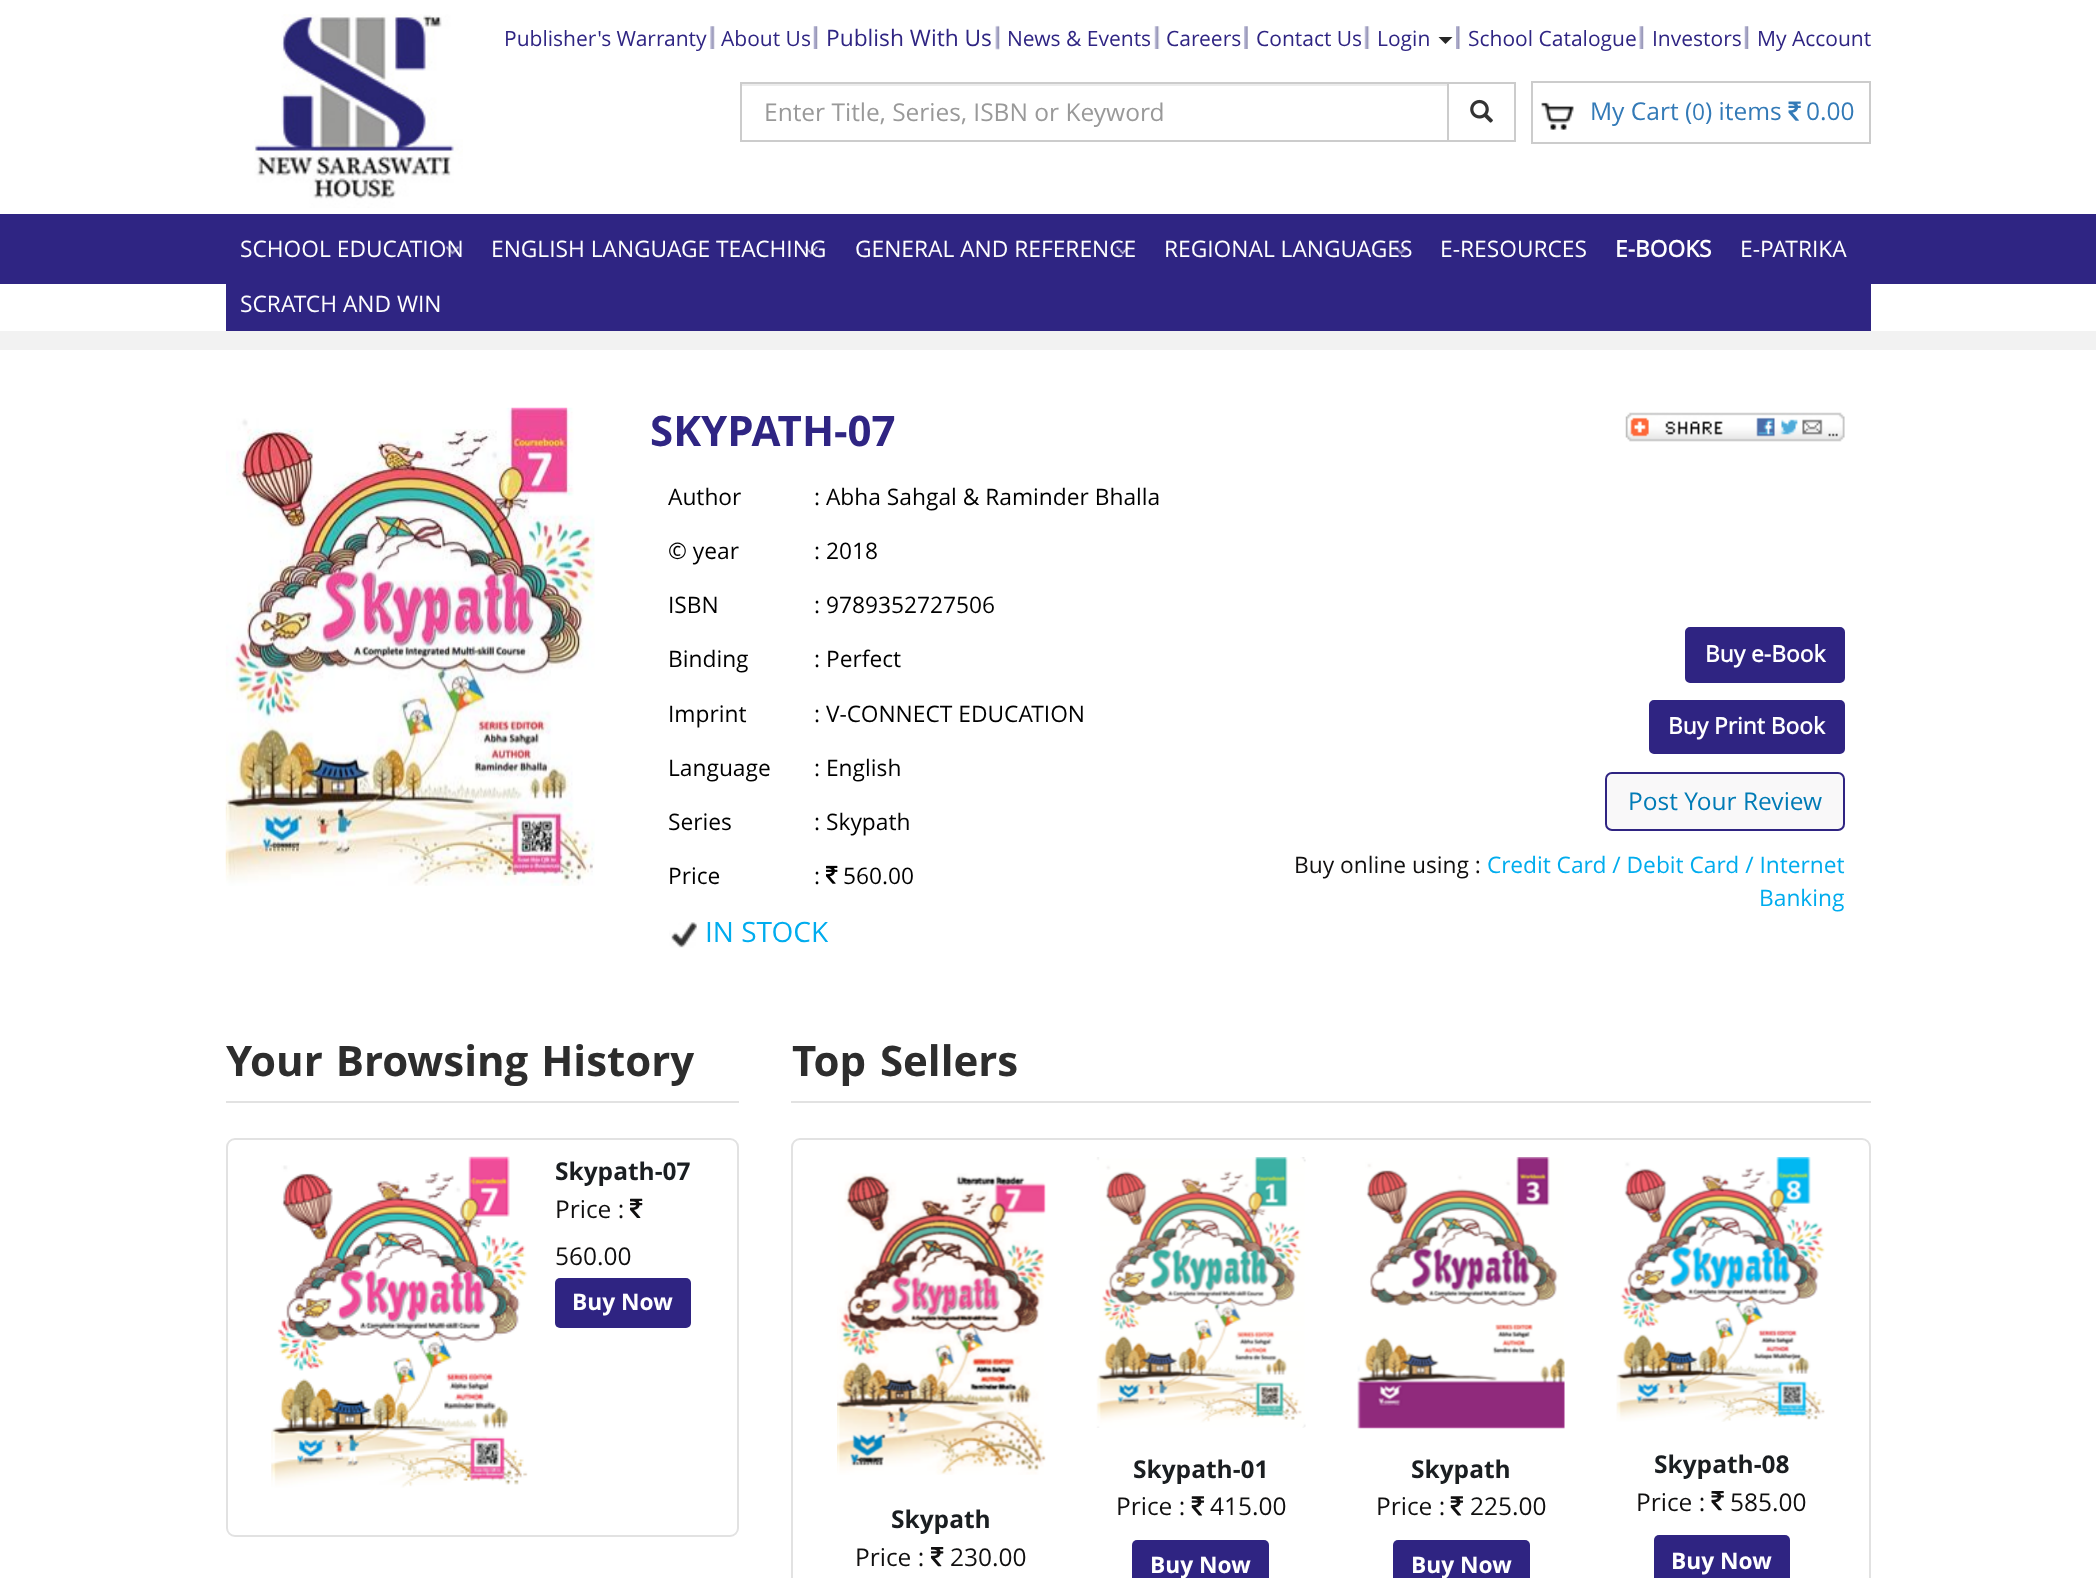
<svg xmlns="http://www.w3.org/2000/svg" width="2096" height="1578">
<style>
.a{font:21px Open Sans;fill:#2f2583}
.b{font:22.75px Open Sans;fill:#2f2583}
.c{font:24.5px Open Sans;fill:#999}
.d{font:24.5px Open Sans;fill:#337ab7}
.e{font:22.75px Open Sans;fill:#337ab7}
.f{font:22.75px Open Sans;fill:#fff}
.g{font:bold 22.75px 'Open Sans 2';fill:#fff}
.h{font:bold 42px Open Sans;fill:#2f2583}
.i{font:22.75px Open Sans;fill:#000}
.j{font:28px Open Sans;fill:#00acee}
.k{font:24.5px Open Sans;fill:#007bb6}
.l{font:22.75px Open Sans;fill:#100f0f}
.m{font:22.75px Open Sans;fill:#00acee}
.n{font:bold 42px Open Sans;fill:#2d2d2d}
.o{font:bold 24.5px Open Sans;fill:#1a1e21}
.p{font:24.5px Open Sans;fill:#100f0f}
.q{font:bold 22.75px Open Sans;fill:#fff}
</style>
<rect width="100%" height="100%" fill="#fff"/>
<image href="1.png" x="254" y="14" width="209" height="194"/>
<image href="2.png" x="710" y="26" width="5" height="23"/>
<image href="3.png" x="813" y="26" width="5" height="23"/>
<image href="4.png" x="995" y="25" width="5" height="25"/>
<image href="5.png" x="1154" y="26" width="6" height="23"/>
<image href="6.png" x="1244" y="26" width="4" height="23"/>
<image href="5.png" x="1364" y="26" width="6" height="23"/>
<image href="7.png" x="1456" y="26" width="4" height="23"/>
<path fill="#272727" d="M1438.5 37h14l-7 7z"/>
<image href="8.png" x="1639" y="26" width="5" height="23"/>
<image href="9.png" x="1744" y="26" width="5" height="23"/>
<path fill="#ececec" d="M742 84h705v2H742z"/>
<path fill="none" stroke="#ccc" stroke-width="2" d="M741 83h707v58H741z"/>
<path fill="none" stroke="#ccc" stroke-width="2" d="M1448 83h67v58H1448z"/>
<image href="10.png" x="1470" y="99" width="23" height="24"/>
<path fill="none" stroke="#ccc" stroke-width="2" d="M1532 82h338v61H1532z"/>
<image href="11.png" x="1541" y="102" width="33" height="28"/>
<image href="12.png" x="1788" y="101" width="13" height="20"/>
<path fill="#2f2583" d="M0 214h2096v70H0z"/>
<path fill="#2f2583" d="M226 284h1645v47H226z"/>
<image href="13.png" x="445" y="246" width="15" height="9"/>
<image href="14.png" x="804" y="246" width="14" height="9"/>
<image href="15.png" x="1116" y="246" width="14" height="9"/>
<image href="16.png" x="1393" y="246" width="15" height="9"/>
<path fill="#f2f2f2" d="M0 331h2096v19H0z"/>
<image href="17.png" x="225" y="407" width="370" height="479"/>
<image href="18.png" x="826" y="865" width="12" height="19"/>
<image href="19.png" x="669" y="922" width="28" height="26"/>
<image href="20.png" x="1625" y="412" width="220" height="30"/>
<rect fill="#2f2482" stroke="#2f2482" stroke-width="2" x="1686" y="628" width="158" height="54" rx="4"/>
<rect fill="#2f2482" stroke="#2f2482" stroke-width="2" x="1650" y="701" width="194" height="52" rx="4"/>
<rect fill="#f9f8f9" stroke="#2f2482" stroke-width="2" x="1606" y="773" width="238" height="57" rx="6"/>
<path fill="#e2e2e2" d="M226 1101h513v2H226z"/>
<rect fill="none" stroke="#e2e2e2" stroke-width="2" x="227" y="1139" width="511" height="397" rx="8"/>
<image href="21.png" x="271" y="1156" width="257" height="332"/>
<image href="22.png" x="630" y="1198" width="13" height="20"/>
<rect fill="#2f2482" x="555" y="1278" width="136" height="50" rx="5"/>
<path fill="#e2e2e2" d="M791 1101h1080v2H791z"/>
<rect fill="none" stroke="#e2e2e2" stroke-width="2" x="792" y="1139" width="1078" height="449" rx="8"/>
<image href="23.png" x="837" y="1173" width="209" height="302"/>
<image href="24.png" x="931" y="1547" width="13" height="20"/>
<image href="25.png" x="1096" y="1157" width="210" height="271"/>
<image href="26.png" x="1191" y="1496" width="14" height="20"/>
<rect fill="#2f2482" x="1132" y="1540" width="137" height="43" rx="5"/>
<image href="27.png" x="1357" y="1157" width="208" height="272"/>
<image href="26.png" x="1450" y="1496" width="14" height="20"/>
<rect fill="#2f2482" x="1393" y="1540" width="137" height="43" rx="5"/>
<image href="28.png" x="1616" y="1157" width="209" height="265"/>
<image href="29.png" x="1711" y="1491" width="13" height="20"/>
<rect fill="#2f2482" x="1654" y="1535" width="136" height="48" rx="5"/>
<text class="a" x="504" y="46">Publisher's Warranty</text>
<text class="a" x="721" y="46">About Us</text>
<text class="b" x="826" y="46">Publish With Us</text>
<text class="a" x="1007" y="46">News &amp; Events</text>
<text class="a" x="1166" y="46">Careers</text>
<text class="a" x="1256" y="46">Contact Us</text>
<text class="a" x="1377" y="46">Login</text>
<text class="a" x="1468" y="46">School Catalogue</text>
<text class="a" x="1652" y="46">Investors</text>
<text class="a" x="1757" y="46">My Account</text>
<text class="c" x="764" y="121">Enter Title, Series, ISBN or Keyword</text>
<text class="d" x="1590" y="120">My Cart (</text>
<text class="e" x="1692" y="120">0</text>
<text class="d" x="1705" y="120">) items</text>
<text class="d" x="1806" y="120">0.00</text>
<text class="f" x="240" y="257">SCHOOL EDUCATION</text>
<text class="f" x="491" y="257">ENGLISH LANGUAGE TEACHING</text>
<text class="f" x="855" y="257">GENERAL AND REFERENCE</text>
<text class="f" x="1164" y="257">REGIONAL LANGUAGES</text>
<text class="f" x="1440" y="257">E-RESOURCES</text>
<text class="g" x="1615" y="257">E-BOOKS</text>
<text class="f" x="1740" y="257">E-PATRIKA</text>
<text class="f" x="240" y="312">SCRATCH AND WIN</text>
<text class="h" x="650" y="446">SKYPATH-07</text>
<text class="i" x="668" y="505">Author</text>
<text class="i" x="814" y="505">: Abha Sahgal &amp; Raminder Bhalla</text>
<text class="i" x="668" y="559">© year</text>
<text class="i" x="814" y="559">: 2018</text>
<text class="i" x="668" y="613">ISBN</text>
<text class="i" x="814" y="613">: 9789352727506</text>
<text class="i" x="668" y="667">Binding</text>
<text class="i" x="814" y="667">: Perfect</text>
<text class="i" x="668" y="722">Imprint</text>
<text class="i" x="814" y="722">: V-CONNECT EDUCATION</text>
<text class="i" x="668" y="776">Language</text>
<text class="i" x="814" y="776">: English</text>
<text class="i" x="668" y="830">Series</text>
<text class="i" x="814" y="830">: Skypath</text>
<text class="i" x="668" y="884">Price</text>
<text class="i" x="814" y="884">:</text>
<text class="i" x="843" y="884">560.00</text>
<text class="j" x="705" y="942">IN STOCK</text>
<text class="g" x="1705" y="662">Buy e-Book</text>
<text class="g" x="1668" y="734">Buy Print Book</text>
<text class="k" x="1628" y="810">Post Your Review</text>
<text class="l" x="1294" y="873">Buy online using :</text>
<text class="m" x="1487" y="873">Credit Card / Debit Card / Internet</text>
<text class="m" x="1759" y="906">Banking</text>
<text class="n" x="226" y="1076" word-spacing="2">Your Browsing History</text>
<text class="o" x="555" y="1180">Skypath-07</text>
<text class="p" x="555" y="1218">Price :</text>
<text class="p" x="555" y="1265">560.00</text>
<text class="q" x="572" y="1310">Buy Now</text>
<text class="n" x="792" y="1076" word-spacing="3">Top Sellers</text>
<text class="o" x="891" y="1528">Skypath</text>
<text class="p" x="855" y="1566">Price :</text>
<text class="p" x="950" y="1566">230.00</text>
<text class="o" x="1133" y="1478">Skypath-01</text>
<text class="p" x="1116" y="1515">Price :</text>
<text class="p" x="1210" y="1515">415.00</text>
<text class="q" x="1150" y="1573">Buy Now</text>
<text class="o" x="1411" y="1478">Skypath</text>
<text class="p" x="1376" y="1515">Price :</text>
<text class="p" x="1470" y="1515">225.00</text>
<text class="q" x="1411" y="1573">Buy Now</text>
<text class="o" x="1654" y="1473">Skypath-08</text>
<text class="p" x="1636" y="1511">Price :</text>
<text class="p" x="1730" y="1511">585.00</text>
<text class="q" x="1671" y="1569">Buy Now</text>
</svg>
